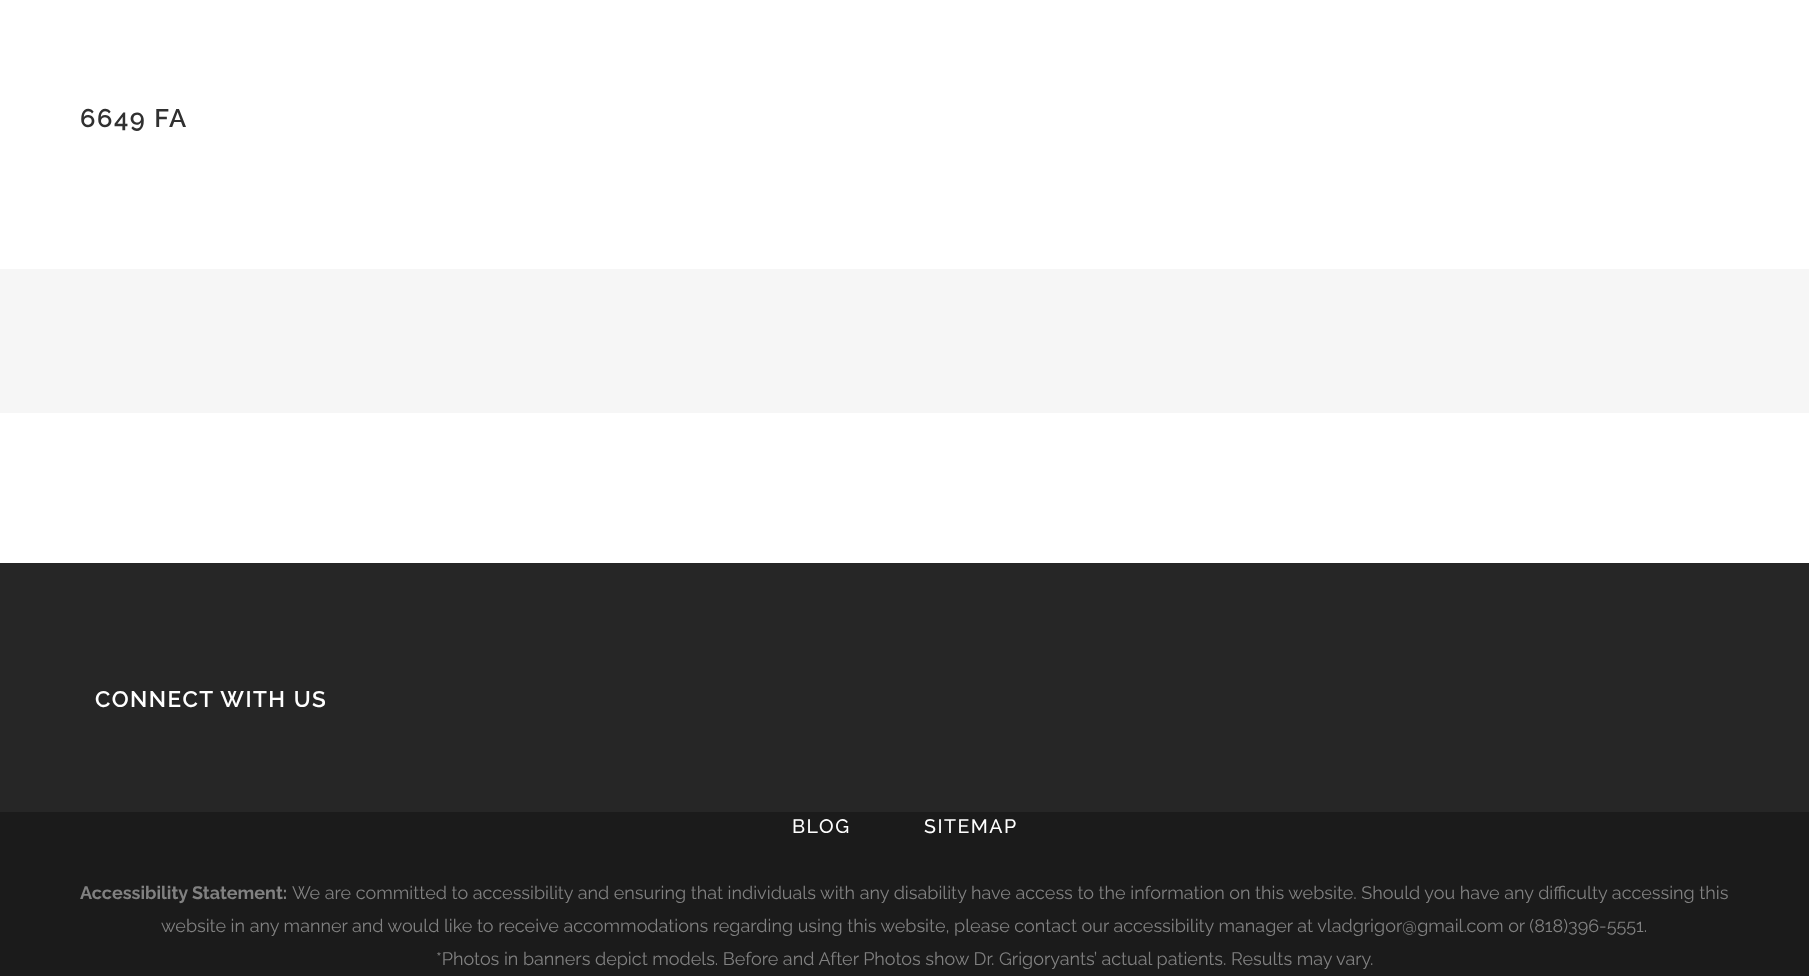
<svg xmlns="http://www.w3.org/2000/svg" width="1809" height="976">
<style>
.a{font:600 25.5px Raleway;letter-spacing:1.5px;fill:#303030}
.b{font:600 22.5px Raleway;letter-spacing:1.5px;fill:#fff}
.c{font:500 19.5px Raleway;letter-spacing:1.5px;fill:#fff}
.d{font:bold 18px Raleway;fill:#818181}
.e{font:18px Raleway;fill:#818181}
</style>
<rect width="100%" height="100%" fill="#f6f6f6"/>
<path fill="#fff" d="M0 0h1809v269H0z"/>
<path fill="#262626" d="M0 563h1809v249H0z"/>
<path fill="#fff" d="M0 413h1809v150H0z"/>
<path fill="#1b1b1b" d="M0 812h1809v164H0z"/>
<text class="a" x="80" y="127">6649 FA</text>
<text class="b" x="95" y="707">CONNECT WITH US</text>
<text class="c" x="792" y="833">BLOG</text>
<text class="c" x="924" y="833">SITEMAP</text>
<text class="d" x="80" y="899">Accessibility Statement:</text>
<text class="e" x="292" y="899">We are committed to accessibility and ensuring that individuals with any disability have access to the information on this website. Should you have any difficulty accessing this</text>
<text class="e" x="161" y="932">website in any manner and would like to receive accommodations regarding using this website, please contact our accessibility manager at vladgrigor@gmail.com or (818)396-5551.</text>
<text class="e" x="436" y="965">*Photos in banners depict models. Before and After Photos show Dr. Grigoryants’ actual patients. Results may vary.</text>
</svg>
